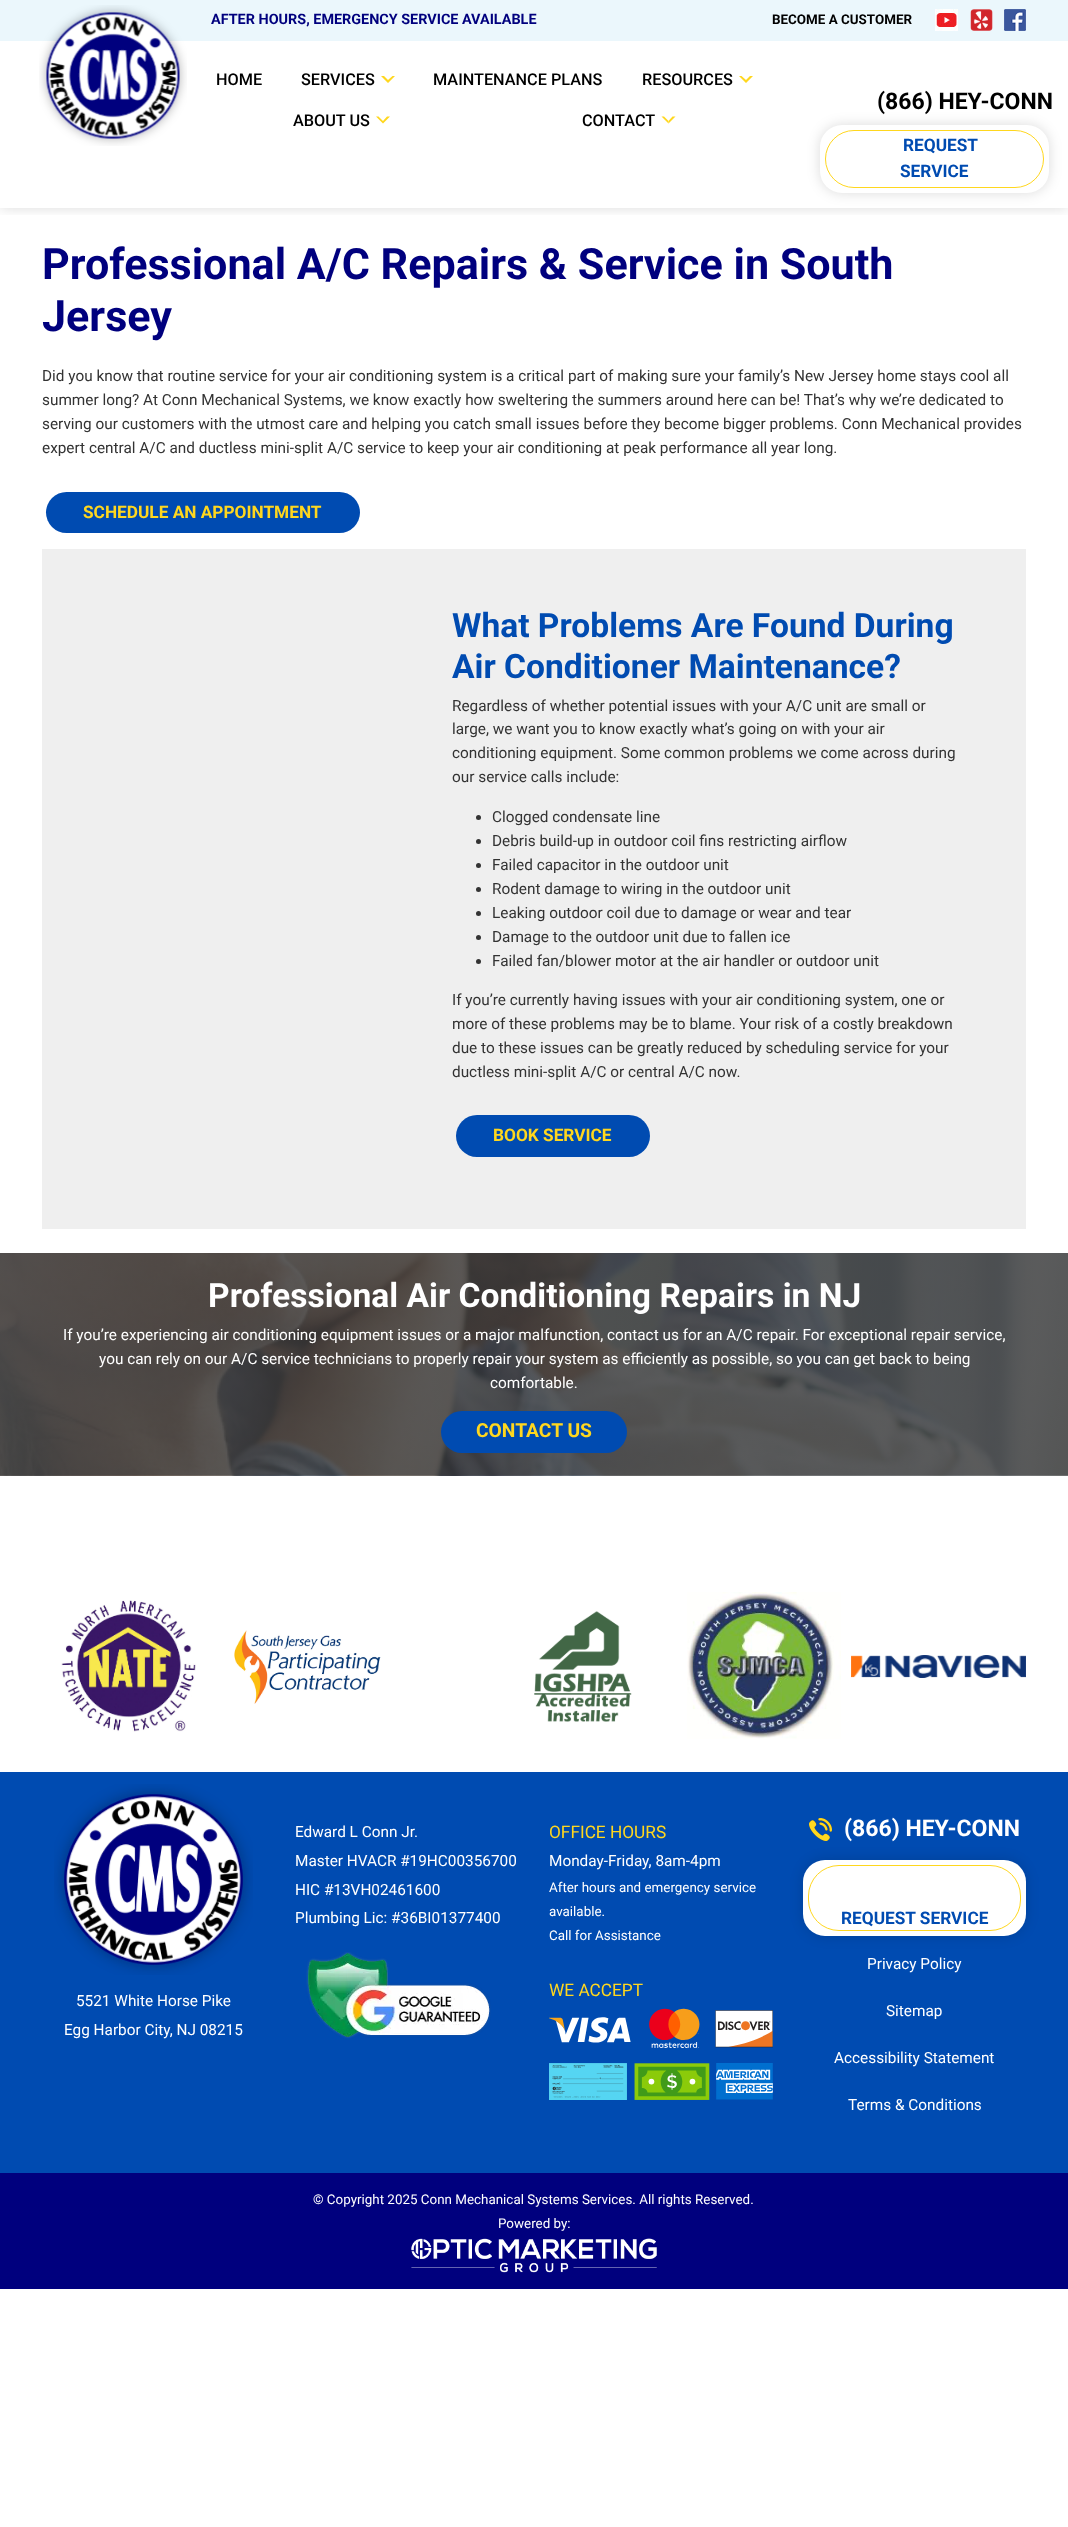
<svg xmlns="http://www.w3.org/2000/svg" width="1068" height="2527">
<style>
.a{font:bold 14.4px Roboto;fill:#00007e}
.b{font:bold 13.4px Roboto;fill:#000}
.c{font:500 16.25px Roboto;fill:#000}
.d{font:bold 23px Roboto;fill:#000}
.e{font:bold 17.25px Roboto;fill:#004bb1}
.f{font:bold 43.1px Roboto;fill:#00007e}
.g{font:15.35px Roboto;fill:#333}
.h{font:bold 17.25px Roboto;fill:#ffd71e}
.i{font:bold 33.6px Roboto;fill:#004bb1}
.j{font:bold 33.6px Roboto;fill:#fff}
.k{font:15.35px Roboto;fill:#fff}
.l{font:bold 19.25px Roboto;fill:#ffd71e}
.m{font:17.25px Roboto;fill:#ffd71e}
.n{font:13.4px Roboto;fill:#fff}
.o{font:bold 23px Roboto;fill:#fff}
</style>
<defs>
<clipPath id="clip1"><path d="M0 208h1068v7H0z"/></clipPath>
</defs>
<rect width="100%" height="100%" fill="#fff"/>
<g clip-path="url(#clip1)">
<path fill="#00000024" filter="blur(6.5px)" d="M0 0h1068v208H0z"/>
</g>
<path fill="#ebf7fc" d="M0 0h1068v41H0z"/>
<image href="1.png" x="935" y="9" width="23" height="22"/>
<image href="2.png" x="970" y="9" width="23" height="22"/>
<image href="3.png" x="1004" y="9" width="22" height="22"/>
<image href="4.png" x="39" y="5" width="148" height="141"/>
<path fill="#ffd71e" d="M395 76l-7 7v-3l4.5-4zm-7 7l-7-7h3l4 4z"/>
<path fill="#ffd71e" d="M753 76l-7 7v-3l4-4zm-7 7l-7-7h2.5l4.5 4z"/>
<path fill="#ffd71e" d="M390 116.5l-7 7v-2.5l4-4.5zm-7 7l-7-7h2.5l4.5 4.5z"/>
<path fill="#ffd71e" d="M675.5 116.5l-7 7v-2.5l4-4.5z"/>
<path fill="#ffd71e" d="M668.5 123.5l-7-7h2.5l4.5 4.5z"/>
<rect fill="#00000024" filter="blur(6.5px)" x="820" y="125" width="229" height="68" rx="22"/>
<rect fill="#fff" x="820" y="125" width="229" height="68" rx="22"/>
<rect fill="none" stroke="#ffd71e" x="825.5" y="130.5" width="218" height="57" rx="28.5"/>
<rect fill="#004bb1" x="46" y="492" width="314" height="41" rx="20.5"/>
<path fill="#efefef" d="M42 549h984v680H42z"/>
<circle fill="#333" cx="478.5" cy="817.5" r="2.5"/>
<circle fill="#333" cx="478.5" cy="841.5" r="2.5"/>
<circle fill="#333" cx="478.5" cy="865.5" r="2.5"/>
<circle fill="#333" cx="478.5" cy="889.5" r="2.5"/>
<circle fill="#333" cx="478.5" cy="913.5" r="2.5"/>
<circle fill="#333" cx="478.5" cy="937.5" r="2.5"/>
<circle fill="#333" cx="478.5" cy="961.5" r="2.5"/>
<rect fill="#004bb1" x="456" y="1115" width="194" height="42" rx="21"/>
<image href="5.png" x="0" y="1253" width="1068" height="223"/>
<rect fill="#004bb1" x="441" y="1411" width="186" height="42" rx="21"/>
<image href="6.png" x="61" y="1600" width="135" height="132"/>
<image href="7.png" x="234" y="1630" width="147" height="74"/>
<image href="8.png" x="534" y="1611" width="98" height="111"/>
<image href="9.png" x="687" y="1592" width="154" height="147"/>
<image href="10.png" x="851" y="1655" width="175" height="23"/>
<path fill="#004bb1" d="M0 1772h1068v401H0z"/>
<image href="11.png" x="306" y="1952" width="185" height="87"/>
<image href="12.png" x="549" y="2008" width="224" height="92"/>
<image href="13.png" x="809" y="1818" width="23" height="23"/>
<rect fill="#00000024" filter="blur(6.5px)" x="803" y="1860" width="223" height="76" rx="22"/>
<rect fill="#fff" x="803" y="1860" width="223" height="76" rx="22"/>
<rect fill="none" stroke="#ffd71e" x="808.5" y="1865.5" width="212" height="65" rx="30.5"/>
<image href="14.png" x="54" y="1784" width="199" height="191"/>
<path fill="#00007e" d="M0 2173h1068v116H0z"/>
<image href="15.png" x="411" y="2238" width="246" height="35"/>
<text class="a" x="211" y="24">AFTER HOURS, EMERGENCY SERVICE AVAILABLE</text>
<text class="b" x="772" y="24">BECOME A CUSTOMER</text>
<text class="c" x="216" y="85">HOME</text>
<text class="c" x="301" y="85">SERVICES</text>
<text class="c" x="433" y="85">MAINTENANCE PLANS</text>
<text class="c" x="642" y="85">RESOURCES</text>
<text class="c" x="293" y="126">ABOUT US</text>
<text class="c" x="582" y="126">CONTACT</text>
<text class="d" x="877" y="109">(866) HEY-CONN</text>
<text class="e" x="903" y="151">REQUEST</text>
<text class="e" x="900" y="177">SERVICE</text>
<text class="f" x="42" y="279">Professional A/C Repairs &amp; Service in South</text>
<text class="f" x="42" y="331">Jersey</text>
<text class="g" x="42" y="381">Did you know that routine service for your air conditioning system is a critical part of making sure your family’s New Jersey home stays cool all</text>
<text class="g" x="42" y="405">summer long? At Conn Mechanical Systems, we know exactly how sweltering the summers around here can be! That’s why we’re dedicated to</text>
<text class="g" x="42" y="429">serving our customers with the utmost care and helping you catch small issues before they become bigger problems. Conn Mechanical provides</text>
<text class="g" x="42" y="453">expert central A/C and ductless mini-split A/C service to keep your air conditioning at peak performance all year long.</text>
<text class="h" x="83" y="518">SCHEDULE AN APPOINTMENT</text>
<text class="i" x="452" y="637">What Problems Are Found During</text>
<text class="i" x="452" y="678">Air Conditioner Maintenance?</text>
<text class="g" x="452" y="711">Regardless of whether potential issues with your A/C unit are small or</text>
<text class="g" x="452" y="734">large, we want you to know exactly what’s going on with your air</text>
<text class="g" x="452" y="758">conditioning equipment. Some common problems we come across during</text>
<text class="g" x="452" y="782">our service calls include:</text>
<text class="g" x="492" y="822">Clogged condensate line</text>
<text class="g" x="492" y="846">Debris build-up in outdoor coil fins restricting airflow</text>
<text class="g" x="492" y="870">Failed capacitor in the outdoor unit</text>
<text class="g" x="492" y="894">Rodent damage to wiring in the outdoor unit</text>
<text class="g" x="492" y="918">Leaking outdoor coil due to damage or wear and tear</text>
<text class="g" x="492" y="942">Damage to the outdoor unit due to fallen ice</text>
<text class="g" x="492" y="966">Failed fan/blower motor at the air handler or outdoor unit</text>
<text class="g" x="452" y="1005">If you’re currently having issues with your air conditioning system, one or</text>
<text class="g" x="452" y="1029">more of these problems may be to blame. Your risk of a costly breakdown</text>
<text class="g" x="452" y="1053">due to these issues can be greatly reduced by scheduling service for your</text>
<text class="g" x="452" y="1077">ductless mini-split A/C or central A/C now.</text>
<text class="h" x="493" y="1141">BOOK SERVICE</text>
<text class="j" x="208" y="1307">Professional Air Conditioning Repairs in NJ</text>
<text class="k" x="63" y="1340">If you’re experiencing air conditioning equipment issues or a major malfunction, contact us for an A/C repair. For exceptional repair service,</text>
<text class="k" x="99" y="1364">you can rely on our A/C service technicians to properly repair your system as efficiently as possible, so you can get back to being</text>
<text class="k" x="490" y="1388">comfortable.</text>
<text class="l" x="476" y="1437">CONTACT US</text>
<text class="k" x="295" y="1837">Edward L Conn Jr.</text>
<text class="k" x="295" y="1866">Master HVACR #19HC00356700</text>
<text class="k" x="295" y="1895">HIC #13VH02461600</text>
<text class="k" x="295" y="1923">Plumbing Lic: #36BI01377400</text>
<text class="m" x="549" y="1838">OFFICE HOURS</text>
<text class="k" x="549" y="1866">Monday-Friday, 8am-4pm</text>
<text class="n" x="549" y="1892">After hours and emergency service</text>
<text class="n" x="549" y="1916">available.</text>
<text class="n" x="549" y="1940">Call for Assistance</text>
<text class="m" x="549" y="1996">WE ACCEPT</text>
<text class="o" x="844" y="1836">(866) HEY-CONN</text>
<text class="e" x="841" y="1924">REQUEST SERVICE</text>
<text class="k" x="867" y="1969">Privacy Policy</text>
<text class="k" x="886" y="2016">Sitemap</text>
<text class="k" x="834" y="2063">Accessibility Statement</text>
<text class="k" x="848" y="2110">Terms &amp; Conditions</text>
<text class="k" x="76" y="2006">5521 White Horse Pike</text>
<text class="k" x="64" y="2035">Egg Harbor City, NJ 08215</text>
<text class="n" x="313" y="2204">© Copyright 2025 Conn Mechanical Systems Services. All rights Reserved.</text>
<text class="n" x="498" y="2228">Powered by:</text>
</svg>
